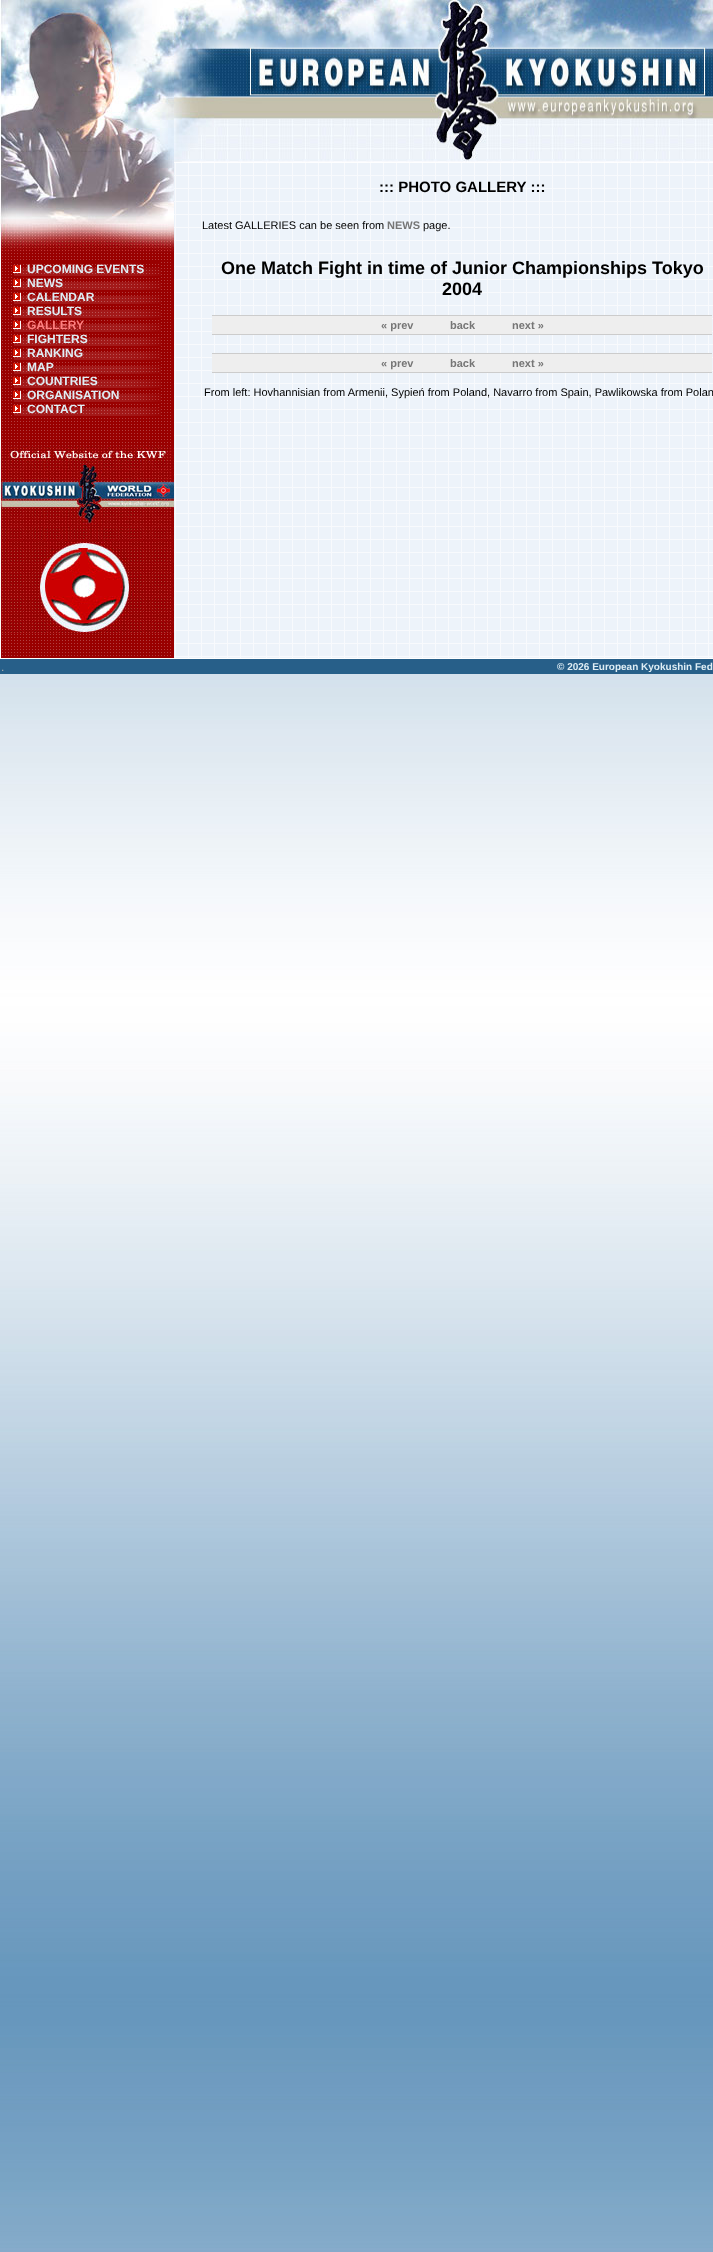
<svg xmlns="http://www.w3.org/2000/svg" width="713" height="2252">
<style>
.a{font:bold 12px Liberation Sans;fill:#dfeef5}
.b{font:bold 12px Liberation Sans;fill:#ff8080}
.c{font:bold 15px Liberation Sans;fill:#000}
.d{font:11px Liberation Sans;fill:#000}
.e{font:bold 11px Liberation Sans;fill:#767676}
.f{font:bold 18px Liberation Sans;fill:#000}
.g{font:12px Liberation Sans;fill:#acacac}
.h{font:bold 10px Liberation Sans;fill:#dfeef5}
</style>
<rect width="100%" height="100%" fill="#fff"/>
<image href="1.png" x="0" y="674" width="713" height="1578"/>
<image href="2.png" x="174" y="163" width="539" height="495"/>
<image href="3.png" x="0" y="252" width="174" height="406"/>
<image href="4.png" x="0" y="0" width="174" height="252"/>
<image href="5.png" x="14" y="262" width="147" height="14"/>
<image href="6.png" x="13" y="265" width="8" height="8"/>
<image href="7.png" x="14" y="277" width="147" height="13"/>
<image href="6.png" x="13" y="279" width="8" height="8"/>
<image href="8.png" x="14" y="296" width="147" height="8"/>
<image href="6.png" x="13" y="293" width="8" height="8"/>
<image href="5.png" x="14" y="304" width="147" height="14"/>
<image href="6.png" x="13" y="307" width="8" height="8"/>
<image href="7.png" x="14" y="319" width="147" height="13"/>
<image href="6.png" x="13" y="321" width="8" height="8"/>
<image href="8.png" x="14" y="338" width="147" height="8"/>
<image href="6.png" x="13" y="335" width="8" height="8"/>
<image href="5.png" x="14" y="346" width="147" height="14"/>
<image href="6.png" x="13" y="349" width="8" height="8"/>
<image href="7.png" x="14" y="361" width="147" height="13"/>
<image href="6.png" x="13" y="363" width="8" height="8"/>
<image href="8.png" x="14" y="380" width="147" height="8"/>
<image href="6.png" x="13" y="377" width="8" height="8"/>
<image href="5.png" x="14" y="388" width="147" height="14"/>
<image href="6.png" x="13" y="391" width="8" height="8"/>
<image href="7.png" x="14" y="403" width="147" height="13"/>
<image href="6.png" x="13" y="405" width="8" height="8"/>
<image href="9.png" x="0" y="446" width="174" height="94"/>
<image href="10.png" x="0" y="540" width="174" height="94"/>
<image href="11.png" x="174" y="0" width="539" height="163"/>
<path fill="#ccc" d="M212 315h500v1H212z"/>
<path fill="#eee" d="M212 316h500v18H212z"/>
<path fill="#ccc" d="M212 334h500v1H212z"/>
<path fill="#ccc" d="M212 353h500v1H212z"/>
<path fill="#eee" d="M212 354h500v18H212z"/>
<path fill="#ccc" d="M212 372h500v1H212z"/>
<path fill="#275f89" d="M0 659h713v15H0z"/>
<text class="a" x="27" y="273">UPCOMING EVENTS</text>
<text class="a" x="27" y="287">NEWS</text>
<text class="a" x="27" y="301">CALENDAR</text>
<text class="a" x="27" y="315">RESULTS</text>
<text class="b" x="27" y="329">GALLERY</text>
<text class="a" x="27" y="343">FIGHTERS</text>
<text class="a" x="27" y="357">RANKING</text>
<text class="a" x="27" y="371">MAP</text>
<text class="a" x="27" y="385">COUNTRIES</text>
<text class="a" x="27" y="399">ORGANISATION</text>
<text class="a" x="27" y="413">CONTACT</text>
<text class="c" x="379" y="192">::: PHOTO GALLERY :::</text>
<text class="d" x="202" y="229">Latest GALLERIES can be seen from</text>
<text class="e" x="387" y="229">NEWS</text>
<text class="d" x="423" y="229">page.</text>
<text class="f" x="221" y="274">One Match Fight in time of Junior Championships Tokyo</text>
<text class="f" x="442" y="295">2004</text>
<text class="e" x="381" y="329">« prev</text>
<text class="e" x="450" y="329">back</text>
<text class="e" x="512" y="329">next »</text>
<text class="e" x="381" y="367">« prev</text>
<text class="e" x="450" y="367">back</text>
<text class="e" x="512" y="367">next »</text>
<text class="d" x="204" y="396">From left: Hovhannisian from Armenii, Sypień from Poland, Navarro from Spain, Pawlikowska from Polan</text>
<text class="g" x="1" y="671">.</text>
<text class="h" x="557" y="670">© 2026 European Kyokushin Fed</text>
</svg>
